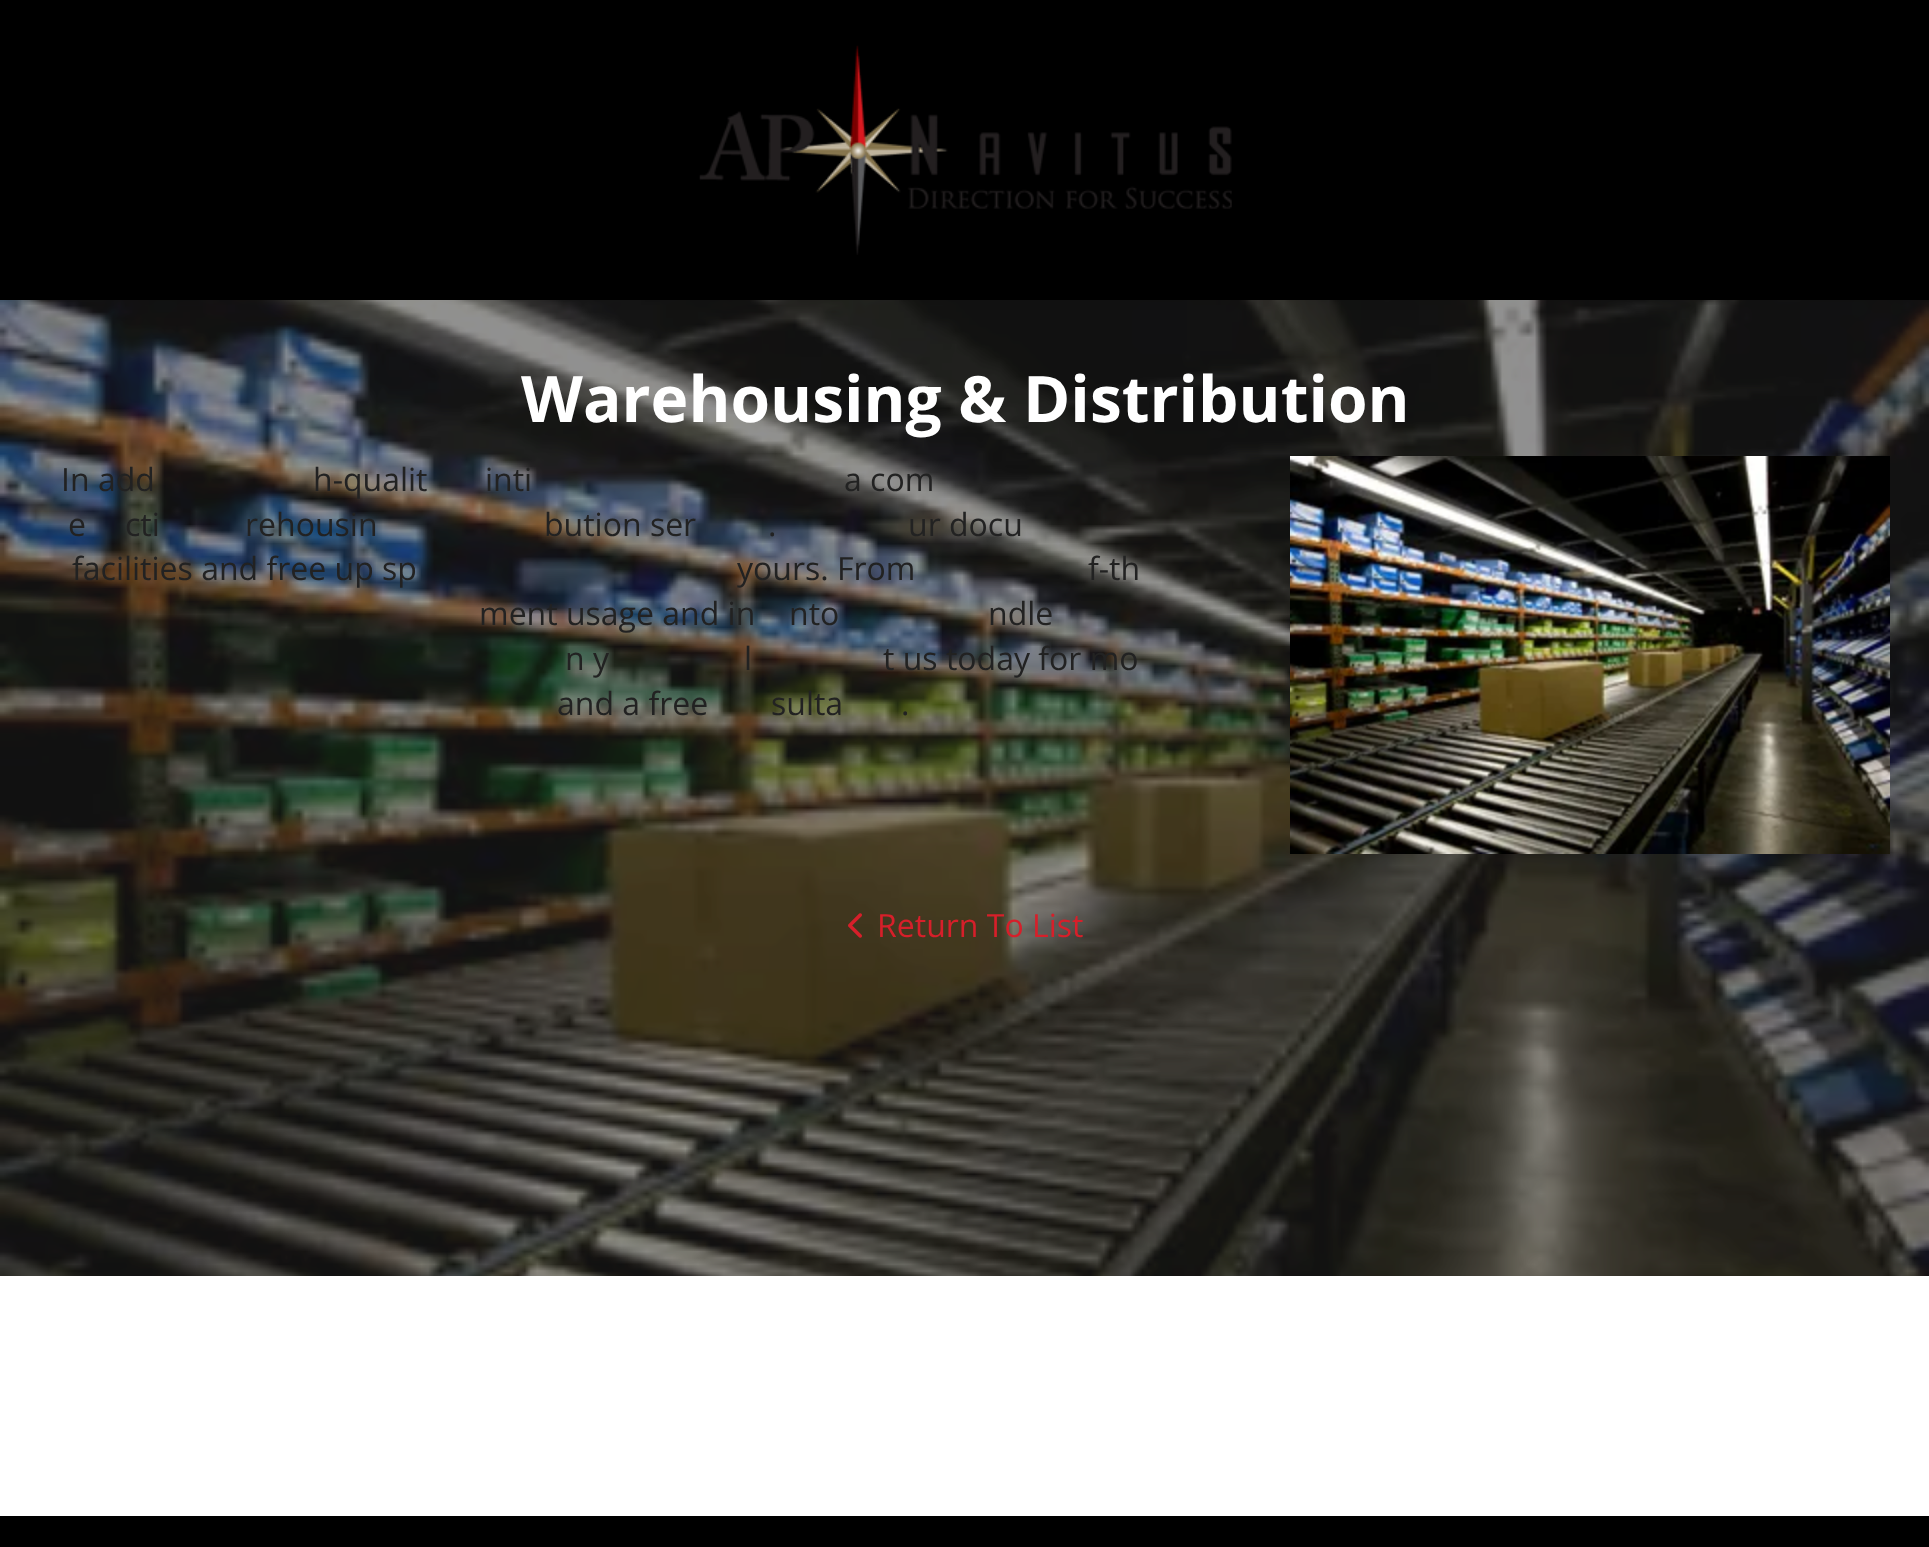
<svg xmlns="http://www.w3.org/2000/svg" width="1929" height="1547">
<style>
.a{font:bold 64px Open Sans;fill:#fff}
.b{font:32px Open Sans;fill:#222}
.c{font:32px Open Sans;fill:#d71f2a}
</style>
<rect width="100%" height="100%" fill="#fff"/>
<path fill="#000" d="M0 0h1929v300H0z"/>
<image href="1.png" x="699" y="45" width="533" height="210"/>
<image href="2.png" x="0" y="300" width="1929" height="976"/>
<image href="3.png" x="1290" y="456" width="600" height="398"/>
<image href="4.png" x="848" y="913" width="14" height="25"/>
<path fill="#000" d="M0 1516h1929v31H0z"/>
<text class="a" x="521" y="422">Warehousing &amp; Distribution</text>
<text class="b" x="61" y="491">In add</text>
<text class="b" x="313" y="491">h-qualit</text>
<text class="b" x="485" y="491">inti</text>
<text class="b" x="844" y="491">a com</text>
<text class="b" x="68" y="536">e</text>
<text class="b" x="125" y="536">cti</text>
<text class="b" x="245" y="536">rehousin</text>
<text class="b" x="544" y="536">bution ser</text>
<text class="b" x="768" y="536">.</text>
<text class="b" x="908" y="536">ur docu</text>
<text class="b" x="72" y="580">facilities and free up sp</text>
<text class="b" x="737" y="580">yours. From</text>
<text class="b" x="1088" y="580">f-th</text>
<text class="b" x="479" y="625">ment usage and in</text>
<text class="b" x="789" y="625">nto</text>
<text class="b" x="988" y="625">ndle</text>
<text class="b" x="565" y="670">n y</text>
<text class="b" x="744" y="670">l</text>
<text class="b" x="883" y="670">t us today for mo</text>
<text class="b" x="557" y="715">and a free</text>
<text class="b" x="771" y="715">sulta</text>
<text class="b" x="901" y="715">.</text>
<text class="c" x="877" y="937">Return To List</text>
</svg>
